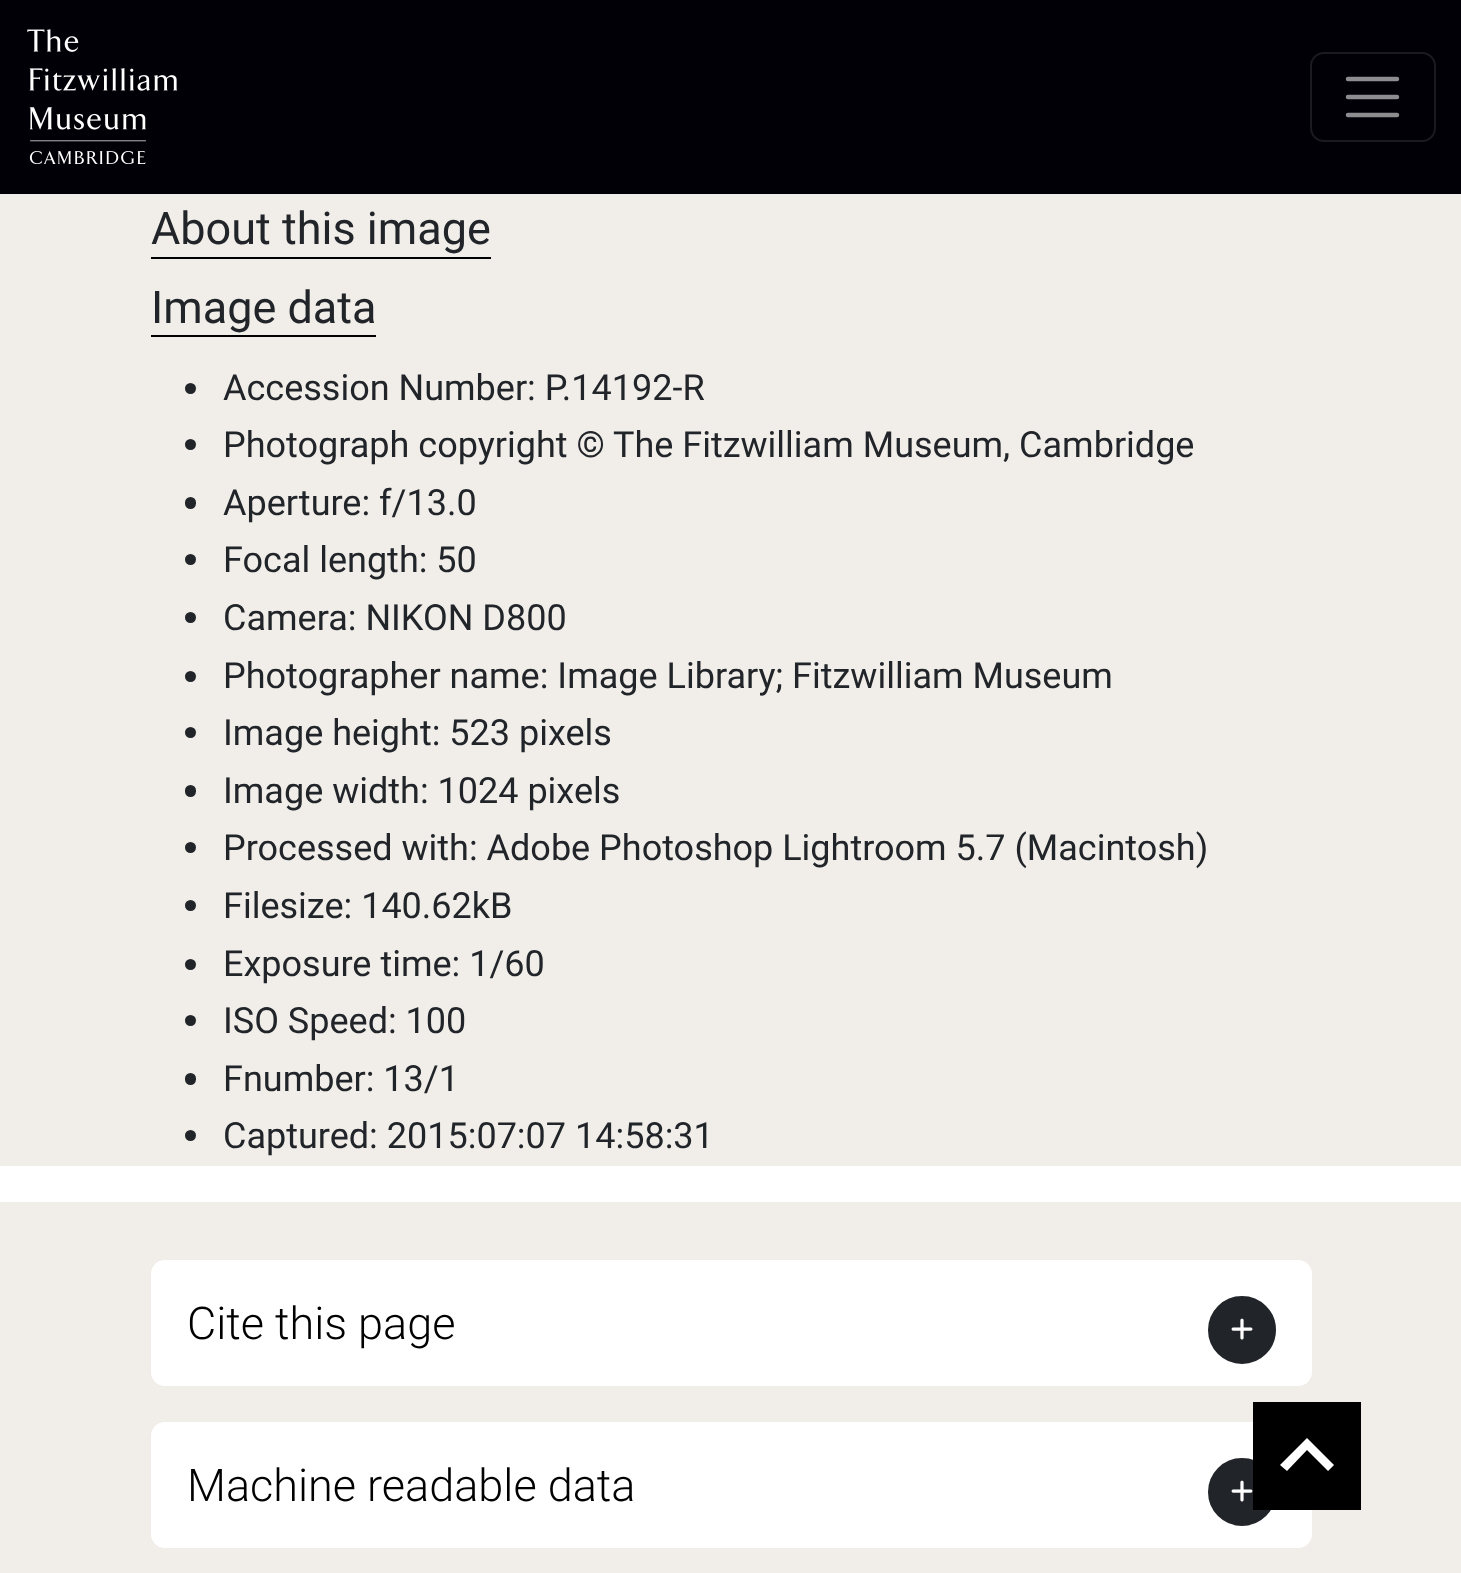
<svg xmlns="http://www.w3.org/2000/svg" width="1461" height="1573">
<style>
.a{font:45px Roboto;fill:#212529}
.b{font:36px Roboto;fill:#212529}
.c{font:300 45px Roboto;fill:#000}
</style>
<rect width="100%" height="100%" fill="#fff"/>
<path fill="#010007" d="M0 0h1461v194H0z"/>
<image href="1.png" x="27" y="29" width="151" height="135"/>
<rect fill="none" stroke="#1a1a20" stroke-width="2" x="1311" y="53" width="124" height="88" rx="13"/>
<path fill="none" stroke="#8d8c8f" stroke-width="4.5" stroke-linecap="round" d="M1348 79h49m-49 18h49m-49 18h49"/>
<path fill="#f1eeea" d="M0 194h1461v972H0z"/>
<path fill="#000" d="M151 257h340v2H151z"/>
<path fill="#000" d="M151 335h225v2H151z"/>
<circle fill="#212529" cx="190.5" cy="388.5" r="5.5"/>
<circle fill="#212529" cx="190.5" cy="444.5" r="5.5"/>
<rect fill="#212529" x="185" y="497" width="11" height="12" rx="5.5"/>
<circle fill="#212529" cx="190.5" cy="559.5" r="5.5"/>
<circle fill="#212529" cx="190.5" cy="617.5" r="5.5"/>
<circle fill="#212529" cx="190.5" cy="676.5" r="5.5"/>
<circle fill="#212529" cx="190.5" cy="732.5" r="5.5"/>
<rect fill="#212529" x="185" y="785" width="11" height="12" rx="5.5"/>
<circle fill="#212529" cx="190.5" cy="847.5" r="5.5"/>
<circle fill="#212529" cx="190.5" cy="905.5" r="5.5"/>
<circle fill="#212529" cx="190.5" cy="964.5" r="5.5"/>
<circle fill="#212529" cx="190.5" cy="1020.5" r="5.5"/>
<rect fill="#212529" x="185" y="1073" width="11" height="12" rx="5.5"/>
<circle fill="#212529" cx="190.5" cy="1135.5" r="5.5"/>
<path fill="#f1eeea" d="M0 1202h1461v371H0z"/>
<rect fill="#fff" x="151" y="1260" width="1161" height="126" rx="14"/>
<circle fill="#212529" stroke="#212529" stroke-width="2" cx="1242" cy="1330" r="33"/>
<image href="2.png" x="1231" y="1318" width="22" height="22"/>
<rect fill="#fff" x="151" y="1422" width="1161" height="126" rx="14"/>
<circle fill="#212529" stroke="#212529" stroke-width="2" cx="1242" cy="1492" r="33"/>
<image href="2.png" x="1231" y="1480" width="22" height="22"/>
<path fill="#000" d="M1253 1402h108v108H1253z"/>
<path fill="#fff" d="M1287 1471l20-21l21 21l6-6l-27-27l-27 27z"/>
<text class="a" x="151" y="244">About this image</text>
<text class="a" x="151" y="323">Image data</text>
<text class="b" x="223" y="400">Accession Number: P.14192-R</text>
<text class="b" x="223" y="457">Photograph copyright © The Fitzwilliam Museum, Cambridge</text>
<text class="b" x="223" y="515">Aperture: f/13.0</text>
<text class="b" x="223" y="572">Focal length: 50</text>
<text class="b" x="223" y="630">Camera: NIKON D800</text>
<text class="b" x="223" y="688">Photographer name: Image Library; Fitzwilliam Museum</text>
<text class="b" x="223" y="745">Image height: 523 pixels</text>
<text class="b" x="223" y="803">Image width: 1024 pixels</text>
<text class="b" x="223" y="860">Processed with: Adobe Photoshop Lightroom 5.7 (Macintosh)</text>
<text class="b" x="223" y="918">Filesize: 140.62kB</text>
<text class="b" x="223" y="976">Exposure time: 1/60</text>
<text class="b" x="223" y="1033">ISO Speed: 100</text>
<text class="b" x="223" y="1091">Fnumber: 13/1</text>
<text class="b" x="223" y="1148">Captured: 2015:07:07 14:58:31</text>
<text class="c" x="187" y="1339">Cite this page</text>
<text class="c" x="187" y="1501">Machine readable data</text>
</svg>
